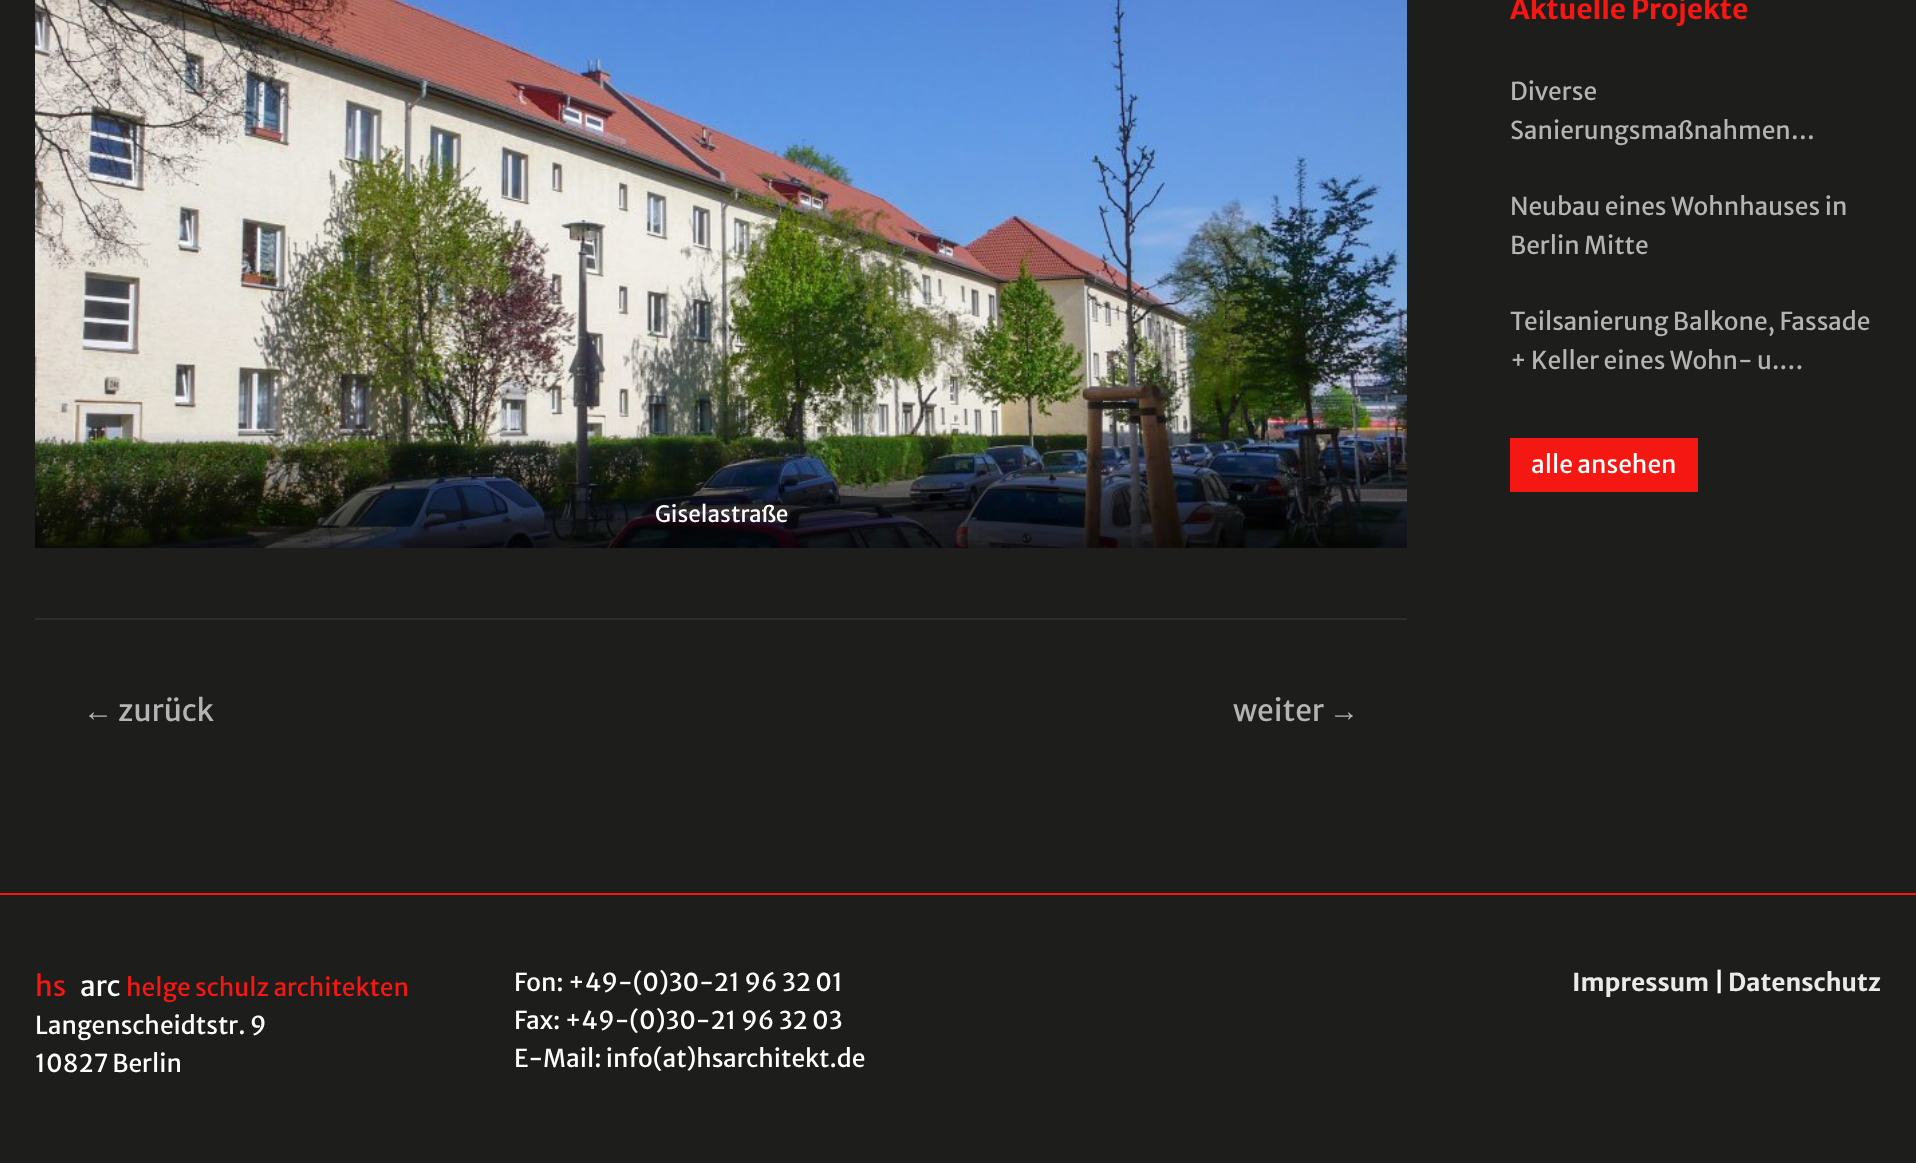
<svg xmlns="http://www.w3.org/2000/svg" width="1916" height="1163">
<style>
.a{font:bold 28px Merriweather Sans;fill:#f51812}
.b{font:24.5px Merriweather Sans;fill:#b4b4b4}
.c{font:24.5px Merriweather Sans;fill:#fff}
.d{font:22.5px Merriweather Sans;fill:#fff}
.e{font:30px Liberation Sans;fill:#b4b4b4}
.f{font:30px Merriweather Sans;fill:#b4b4b4}
.g{font:28px Merriweather Sans;fill:#f51812}
.h{font:28px Merriweather Sans;fill:#fff}
.i{font:24.5px Merriweather Sans;fill:#f51812}
.j{font:bold 24.5px Merriweather Sans;fill:#eaeaea}
.k{font:bold 24.5px Merriweather Sans;fill:#fff}
</style>
<rect width="100%" height="100%" fill="#1d1d1b"/>
<path fill="#f51812" d="M1510 438h188v54H1510z"/>
<image href="1.png" x="35" y="0" width="1372" height="548"/>
<path fill="#2d2d2b" d="M35 618h1372v2H35z"/>
<path fill="#f51812" d="M0 893h1916v2H0z"/>
<text class="a" x="1510" y="19">Aktuelle Projekte</text>
<text class="b" x="1510" y="100">Diverse</text>
<text class="b" x="1510" y="139">Sanierungsmaßnahmen…</text>
<text class="b" x="1510" y="215">Neubau eines Wohnhauses in</text>
<text class="b" x="1510" y="254">Berlin Mitte</text>
<text class="b" x="1510" y="330">Teilsanierung Balkone, Fassade</text>
<text class="b" x="1510" y="369">+ Keller eines Wohn- u.…</text>
<text class="c" x="1531" y="473">alle ansehen</text>
<text class="d" x="655" y="522">Giselastraße</text>
<text class="e" x="83" y="721">←</text>
<text class="f" x="118" y="721">zurück</text>
<text class="f" x="1233" y="721">weiter</text>
<text class="e" x="1329" y="721">→</text>
<text class="g" x="35" y="996">hs</text>
<text class="h" x="80" y="996">arc</text>
<text class="i" x="126" y="996">helge schulz architekten</text>
<text class="c" x="35" y="1034">Langenscheidtstr. 9</text>
<text class="c" x="35" y="1072">10827 Berlin</text>
<text class="c" x="514" y="991">Fon: +49-(0)30-21 96 32 01</text>
<text class="c" x="514" y="1029">Fax: +49-(0)30-21 96 32 03</text>
<text class="c" x="514" y="1067">E-Mail: info(at)hsarchitekt.de</text>
<text class="j" x="1572" y="991">Impressum</text>
<text class="k" x="1714" y="991">|</text>
<text class="j" x="1728" y="991">Datenschutz</text>
</svg>
